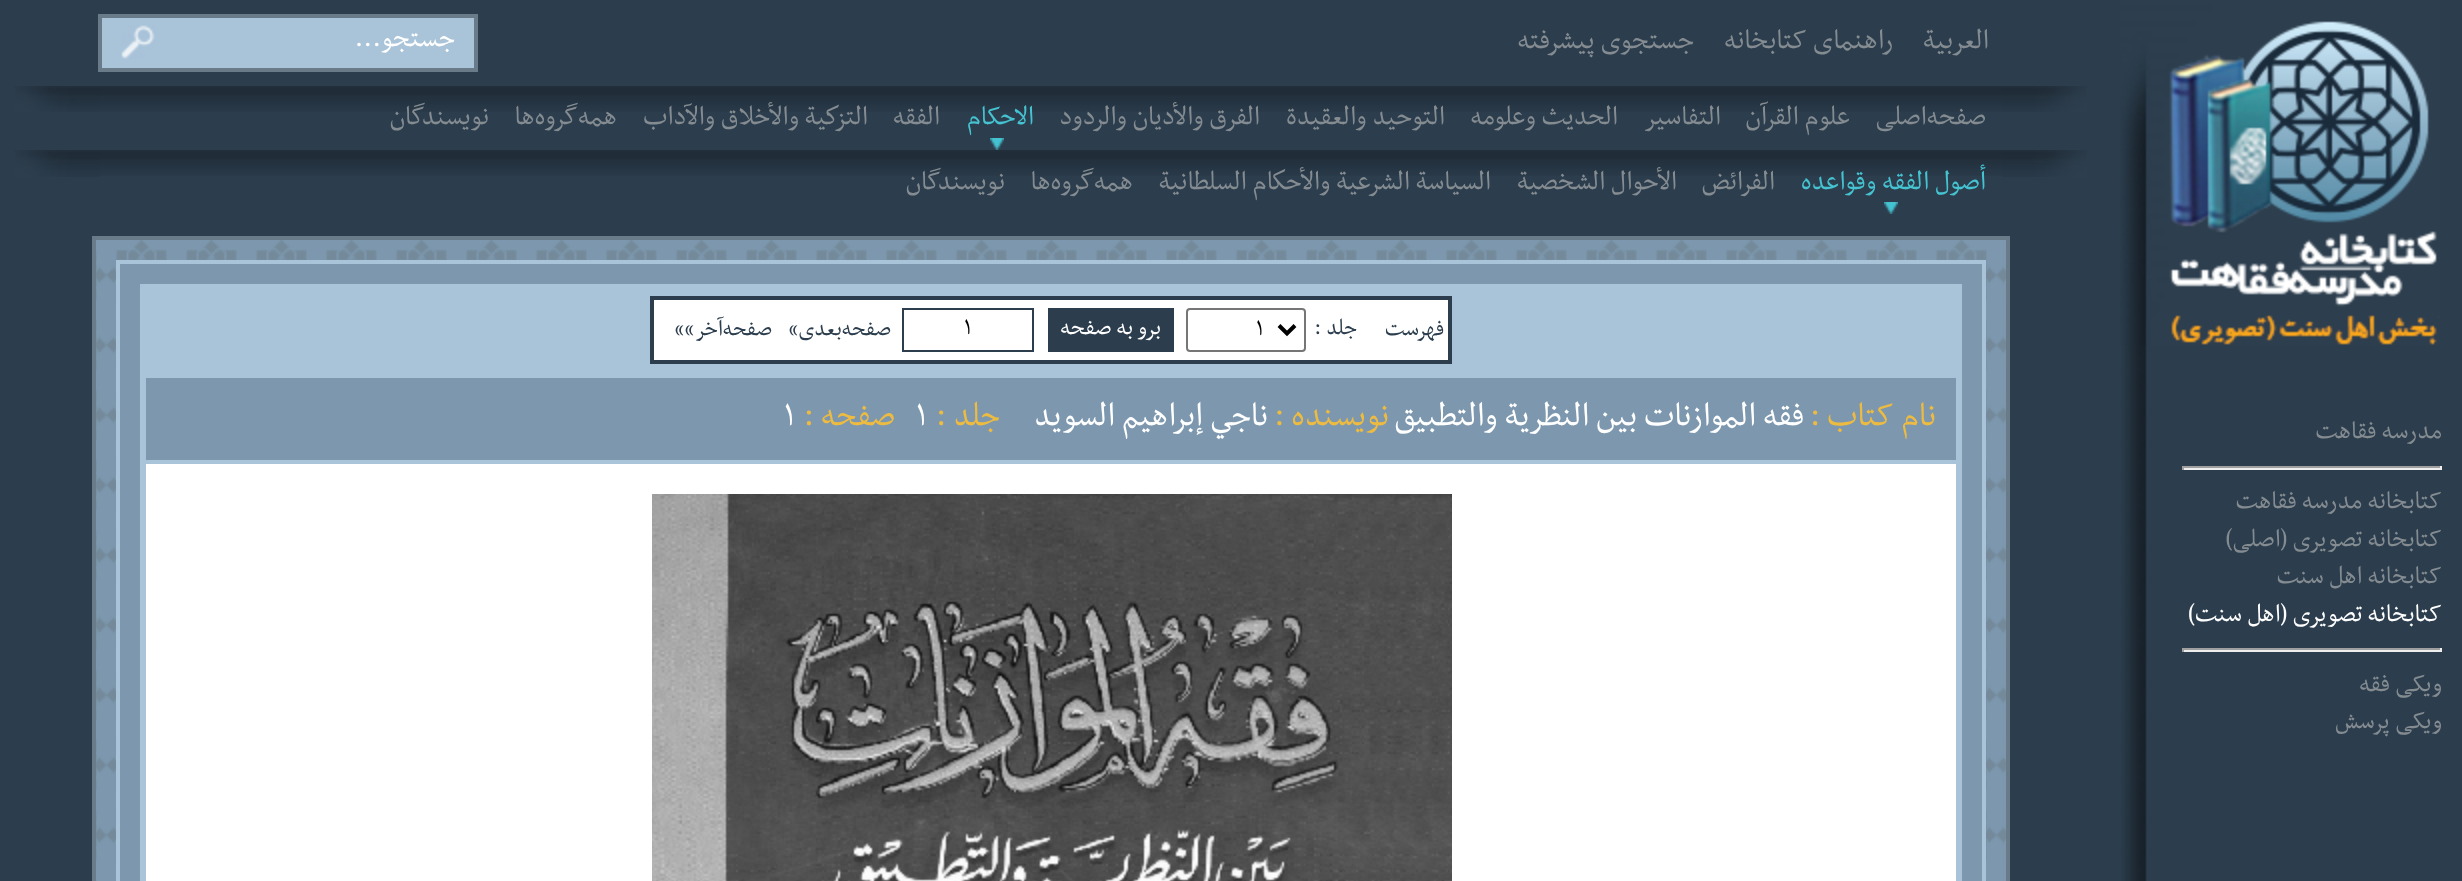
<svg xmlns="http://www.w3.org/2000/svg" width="2462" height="881">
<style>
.a{font:32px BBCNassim;direction:rtl;fill:#858c91}
.b{font:32px BBCNassim;direction:rtl;fill:#fff}
.c{font:30.75px BBCNassim;direction:rtl;fill:#858c91}
.d{font:30.75px BBCNassim;direction:rtl;fill:#45c3d1}
.e{font:25.5px BBCNassim;direction:rtl;fill:#2c3e4e}
.f{font:26.5px BBCNassim;fill:#000}
.g{font:26.5px BBCNassim;direction:rtl;fill:#fff}
.h{font:38.4px BBCNassim;direction:rtl;fill:#eebb41}
.i{font:38.4px BBCNassim;direction:rtl;fill:#fff}
.j{font:38.4px BBCNassim;fill:#fff}
.k{font:28.75px BBCNassim;direction:rtl;fill:#858c91}
.l{font:28.75px BBCNassim;direction:rtl;fill:#fff}
</style>
<rect width="100%" height="100%" fill="#2c3e4e"/>
<path fill="#a9c3d9" stroke="#697a89" stroke-width="4" d="M100 16h376v54H100z"/>
<image href="1.png" x="121" y="25" width="34" height="34"/>
<image href="2.png" x="2002" y="86" width="85" height="26"/>
<image href="3.png" x="100" y="86" width="1902" height="26"/>
<image href="4.png" x="990" y="138" width="14" height="12"/>
<image href="5.png" x="15" y="86" width="85" height="26"/>
<image href="6.png" x="2002" y="150" width="85" height="27"/>
<image href="3.png" x="100" y="150" width="1902" height="26"/>
<image href="4.png" x="1884" y="202" width="14" height="12"/>
<image href="7.png" x="15" y="150" width="85" height="27"/>
<image href="8.png" x="96" y="240" width="1910" height="641"/>
<path fill="none" stroke="#697a89" stroke-width="4" d="M94 238h1914v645H94z"/>
<path fill="#7d98ae" stroke="#a9c3d9" stroke-width="4" d="M118 262h1866v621H118z"/>
<path fill="#a9c3d9" d="M140 284h1822v597H140z"/>
<path fill="#fff" stroke="#2c3e4e" stroke-width="4" d="M652 298h798v64H652z"/>
<rect fill="none" stroke="#767676" stroke-width="2" x="1187" y="309" width="118" height="42" rx="3"/>
<path fill="none" stroke="#000" stroke-width="4" d="M1279 325.5l8 8l8-8"/>
<path fill="#2c3e4e" d="M1048 308h126v44H1048z"/>
<path fill="none" stroke="#2c3e4e" stroke-width="2" d="M903 309h130v42H903z"/>
<path fill="#7d98ae" d="M146 378h1810v82H146z"/>
<path fill="#fff" d="M146 464h1810v417H146z"/>
<image href="9.png" x="652" y="494" width="800" height="387"/>
<image href="10.png" x="2121" y="345" width="26" height="536"/>
<image href="11.png" x="2120" y="0" width="320" height="345"/>
<path fill="#9f9f9f" d="M2182 466h260v2H2182z"/>
<path fill="#eee" d="M2440 466h2v4H2440z"/>
<path fill="#eee" d="M2182 468h260v2H2182z"/>
<path fill="#9f9f9f" d="M2182 466h2v4H2182z"/>
<path fill="#9f9f9f" d="M2182 648h260v2H2182z"/>
<path fill="#eee" d="M2440 648h2v4H2440z"/>
<path fill="#eee" d="M2182 650h260v2H2182z"/>
<path fill="#9f9f9f" d="M2182 648h2v4H2182z"/>
<text class="a" x="1989" y="48">العربیة</text>
<text class="a" x="1893" y="48">راهنمای کتابخانه</text>
<text class="a" x="1694" y="48">جستجوی پیشرفته</text>
<text class="b" x="455" y="46">جستجو...</text>
<text class="c" x="1986" y="124">صفحه‌اصلی</text>
<text class="c" x="1850" y="124">علوم القرآن</text>
<text class="c" x="1721" y="124">التفاسير</text>
<text class="c" x="1618" y="124">الحديث وعلومه</text>
<text class="c" x="1445" y="124">التوحيد والعقيدة</text>
<text class="c" x="1260" y="124">الفرق والأديان والردود</text>
<text class="d" x="1034" y="124">الاحکام</text>
<text class="c" x="940" y="124">الفقه</text>
<text class="c" x="868" y="124">التزكية والأخلاق والآداب</text>
<text class="c" x="617" y="124">همه‌گروه‌ها</text>
<text class="c" x="489" y="124">نویسندگان</text>
<text class="d" x="1986" y="189">أصول الفقه وقواعده</text>
<text class="c" x="1775" y="189">الفرائض</text>
<text class="c" x="1677" y="189">الأحوال الشخصية</text>
<text class="c" x="1491" y="189">السياسة الشرعية والأحكام السلطانية</text>
<text class="c" x="1133" y="189">همه‌گروه‌ها</text>
<text class="c" x="1005" y="189">نویسندگان</text>
<text class="e" x="1444" y="335">فهرست</text>
<text class="e" x="1357" y="334">جلد :</text>
<text class="f" x="1256" y="335">1</text>
<text class="g" x="1161" y="334">برو به صفحه</text>
<text class="f" x="964" y="334">1</text>
<text class="e" x="891" y="335">صفحه‌بعدی»</text>
<text class="e" x="772" y="335">صفحه‌آخر»»</text>
<text class="h" x="1936" y="425">نام کتاب :</text>
<text class="i" x="1804" y="425">فقه الموازنات بين النظرية والتطبيق</text>
<text class="h" x="1389" y="425">نویسنده :</text>
<text class="i" x="1268" y="425">ناجي إبراهيم السويد</text>
<text class="h" x="1000" y="425">جلد :</text>
<text class="j" x="916" y="425">1</text>
<text class="h" x="895" y="425">صفحه :</text>
<text class="j" x="784" y="425">1</text>
<text class="k" x="2442" y="438">مدرسه فقاهت</text>
<text class="k" x="2442" y="508">کتابخانه مدرسه فقاهت</text>
<text class="k" x="2442" y="546">کتابخانه تصویری (اصلی)</text>
<text class="k" x="2442" y="583">کتابخانه اهل سنت</text>
<text class="l" x="2442" y="621">کتابخانه تصویری (اهل سنت)</text>
<text class="k" x="2442" y="691">ویکی فقه</text>
<text class="k" x="2442" y="728">ویکی پرسش</text>
</svg>
